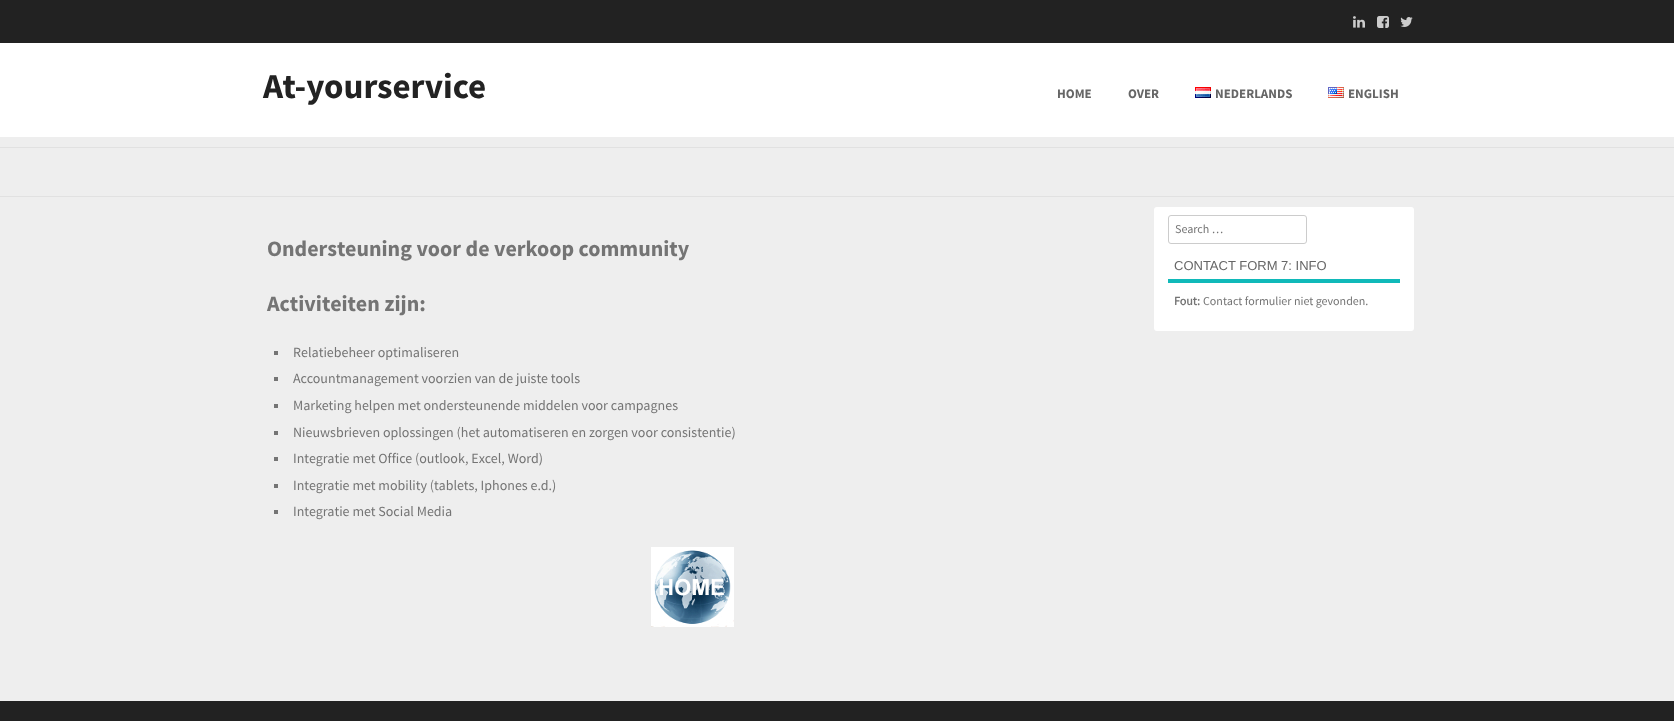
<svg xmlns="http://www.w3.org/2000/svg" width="1674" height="721">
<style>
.a{font:bold 35px Source Sans Pro;fill:#222}
.b{font:bold 13px Source Sans Pro;fill:#666}
.c{font:bold 22px Source Sans Pro;fill:#747474}
.d{font:14px Source Sans Pro;fill:#747474}
.e{font:12px Source Sans Pro;fill:#747474}
.f{font:13px Liberation Sans;fill:#666}
.g{font:bold 12px 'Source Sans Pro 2';fill:#747474}
</style>
<rect width="100%" height="100%" fill="#eee"/>
<path fill="#fff" d="M0 43h1674v94H0z"/>
<path fill="#222" d="M0 0h1674v43H0z"/>
<image href="1.png" x="1353" y="16" width="12" height="12"/>
<image href="2.png" x="1377" y="16" width="12" height="12"/>
<image href="3.png" x="1400" y="17" width="13" height="10"/>
<image href="4.png" x="1195" y="87" width="16" height="11"/>
<image href="5.png" x="1328" y="87" width="16" height="11"/>
<path fill="#e1e1e1" d="M0 147h1674v1H0z"/>
<path fill="#e1e1e1" d="M0 196h1674v1H0z"/>
<path fill="#747474" d="M274 351h4v4H274z"/>
<path fill="#747474" d="M274 377h4v4H274z"/>
<path fill="#747474" d="M274 404h4v4H274z"/>
<path fill="#747474" d="M274 431h4v4H274z"/>
<path fill="#747474" d="M274 457h4v4H274z"/>
<path fill="#747474" d="M274 484h4v4H274z"/>
<path fill="#747474" d="M274 510h4v4H274z"/>
<image href="6.png" x="651" y="547" width="83" height="80"/>
<rect fill="#fff" x="1154" y="207" width="260" height="124" rx="3"/>
<rect fill="none" stroke="#ccc" x="1168.5" y="215.5" width="138" height="28" rx="2.5"/>
<path fill="#10b9b9" d="M1168 279h232v4H1168z"/>
<path fill="#222" d="M0 701h1674v20H0z"/>
<text class="a" x="263" y="98">At-yourservice</text>
<text class="b" x="1057" y="98">HOME</text>
<text class="b" x="1128" y="98">OVER</text>
<text class="b" x="1215" y="98">NEDERLANDS</text>
<text class="b" x="1348" y="98">ENGLISH</text>
<text class="c" x="267" y="256">Ondersteuning voor de verkoop community</text>
<text class="c" x="267" y="311">Activiteiten zijn:</text>
<text class="d" x="293" y="357">Relatiebeheer optimaliseren</text>
<text class="d" x="293" y="383">Accountmanagement voorzien van de juiste tools</text>
<text class="d" x="293" y="410">Marketing helpen met ondersteunende middelen voor campagnes</text>
<text class="d" x="293" y="437">Nieuwsbrieven oplossingen (het automatiseren en zorgen voor consistentie)</text>
<text class="d" x="293" y="463">Integratie met Office (outlook, Excel, Word)</text>
<text class="d" x="293" y="490">Integratie met mobility (tablets, Iphones e.d.)</text>
<text class="d" x="293" y="516">Integratie met Social Media</text>
<text class="e" x="1175" y="233">Search …</text>
<text class="f" x="1174" y="270">CONTACT FORM 7: INFO</text>
<text class="g" x="1174" y="305">Fout:</text>
<text class="e" x="1203" y="305">Contact formulier niet gevonden.</text>
</svg>
